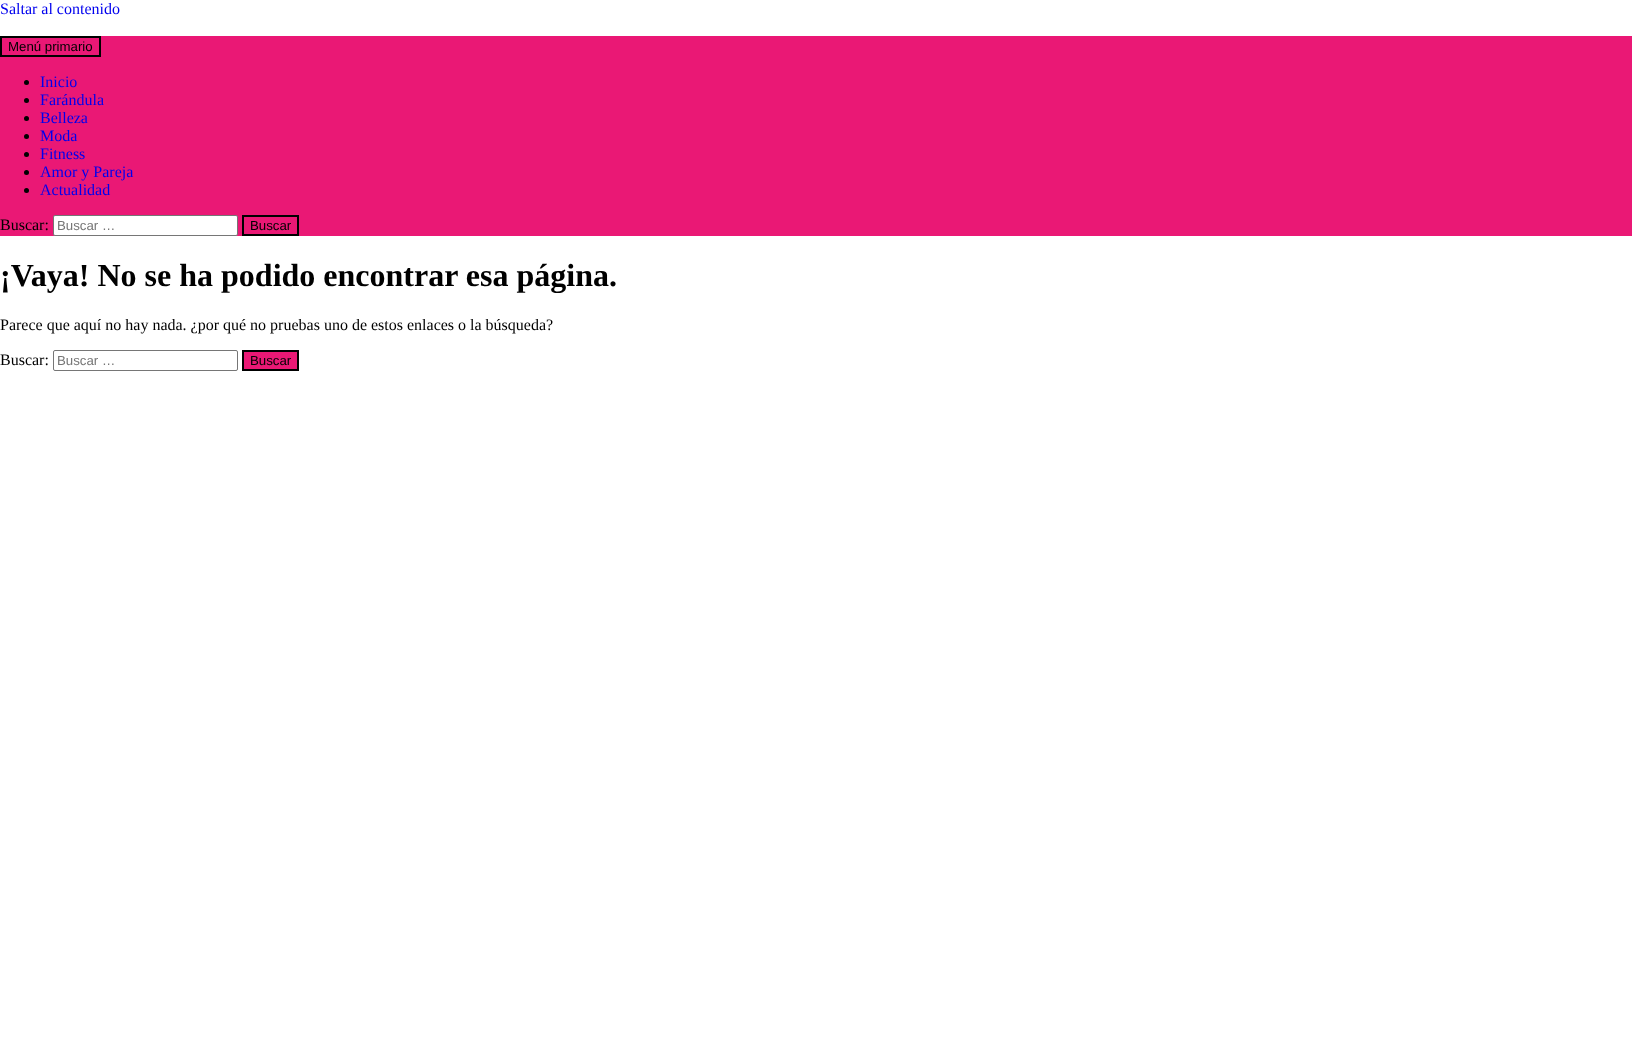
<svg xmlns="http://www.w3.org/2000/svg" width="1632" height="1039">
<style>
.a{font:16px Liberation Serif;fill:#00e}
.b{font:13.25px Liberation Sans;fill:#000}
.c{font:16px Liberation Serif;fill:#000}
.d{font:13.25px Liberation Sans;fill:#757575}
.e{font:bold 32px Liberation Serif;fill:#000}
</style>
<rect width="100%" height="100%" fill="#fff"/>
<path fill="#ea1875" d="M0 36h1632v200H0z"/>
<path fill="none" stroke="#000" stroke-width="2" d="M1 37h99v19H1z"/>
<circle fill="#000" cx="26.5" cy="82.5" r="2.5"/>
<circle fill="#000" cx="26.5" cy="100.5" r="2.5"/>
<circle fill="#000" cx="26.5" cy="118.5" r="2.5"/>
<circle fill="#000" cx="26.5" cy="136.5" r="2.5"/>
<circle fill="#000" cx="26.5" cy="154.5" r="2.5"/>
<circle fill="#000" cx="26.5" cy="172.5" r="2.5"/>
<circle fill="#000" cx="26.5" cy="190.5" r="2.5"/>
<rect fill="#fff" stroke="#767676" x="53.5" y="215.5" width="184" height="20" rx="1.5"/>
<path fill="none" stroke="#000" stroke-width="2" d="M243 216h55v19H243z"/>
<rect fill="none" stroke="#767676" x="53.5" y="350.5" width="184" height="20" rx="1.5"/>
<path fill="#ea1875" stroke="#000" stroke-width="2" d="M243 351h55v19H243z"/>
<text class="a" x="0" y="14">Saltar al contenido</text>
<text class="b" x="8" y="51">Menú primario</text>
<text class="a" x="40" y="87">Inicio</text>
<text class="a" x="40" y="105">Farándula</text>
<text class="a" x="40" y="123">Belleza</text>
<text class="a" x="40" y="141">Moda</text>
<text class="a" x="40" y="159">Fitness</text>
<text class="a" x="40" y="177">Amor y Pareja</text>
<text class="a" x="40" y="195">Actualidad</text>
<text class="c" x="0" y="230">Buscar:</text>
<text class="d" x="57" y="230">Buscar …</text>
<text class="b" x="250" y="230">Buscar</text>
<text class="e" x="0" y="286">¡Vaya! No se ha podido encontrar esa página.</text>
<text class="c" x="0" y="330">Parece que aquí no hay nada. ¿por qué no pruebas uno de estos enlaces o la búsqueda?</text>
<text class="c" x="0" y="365">Buscar:</text>
<text class="d" x="57" y="365">Buscar …</text>
<text class="b" x="250" y="365">Buscar</text>
</svg>
